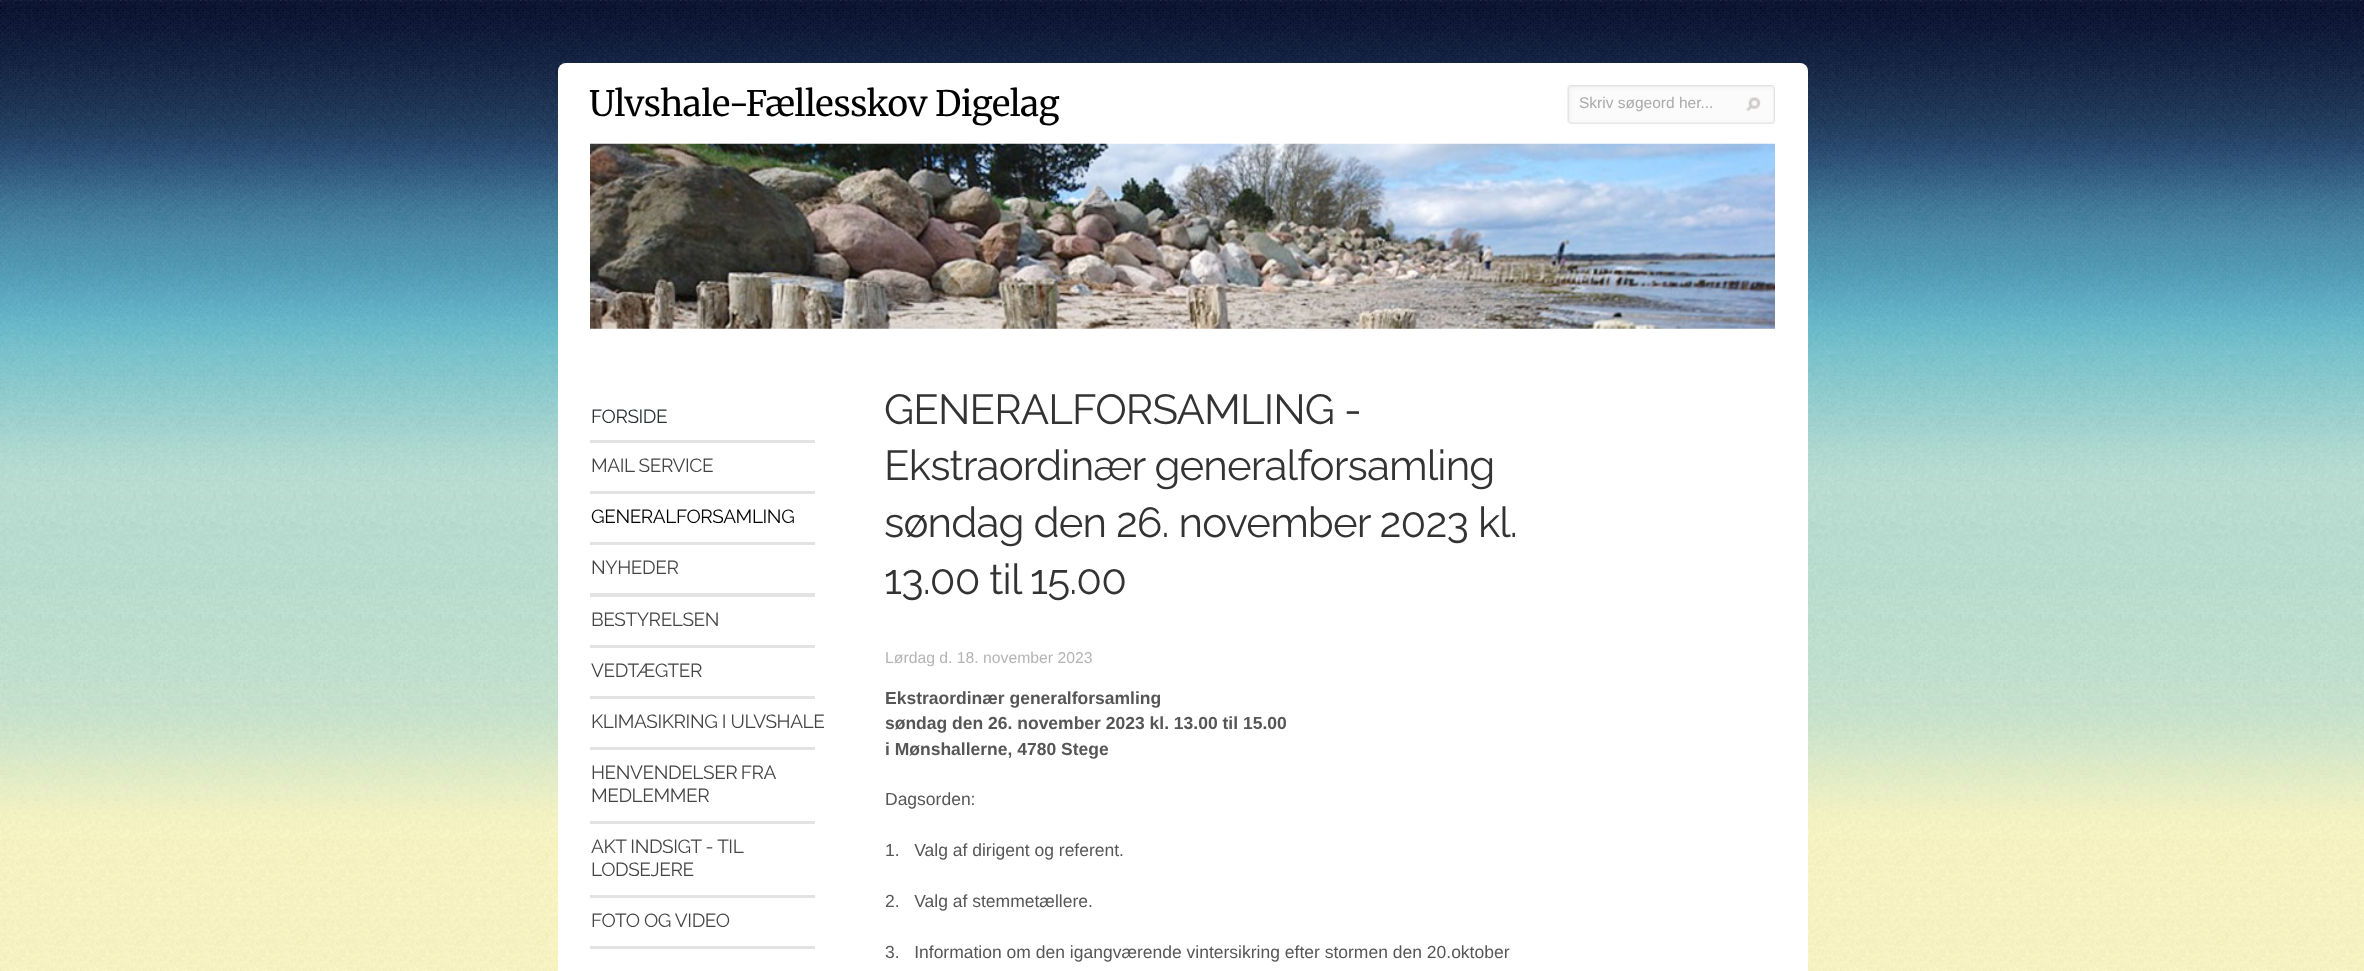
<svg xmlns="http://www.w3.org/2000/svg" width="2364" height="971">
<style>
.a{font:35px Merriweather;letter-spacing:-0.35px;fill:#000}
.b{font:15.5px Liberation Sans;fill:#aaa}
.c{font:19px Raleway;letter-spacing:-0.4px;fill:#283032}
.d{font:19px Raleway;letter-spacing:-0.4px;fill:#444}
.e{font:19px Raleway;letter-spacing:-0.4px;fill:#000}
.f{font:42px Raleway;letter-spacing:-0.85px;fill:#333}
.g{font:15.75px Liberation Sans;fill:#b4b4b4}
.h{font:bold 17.5px Liberation Sans;fill:#565656}
.i{font:17.5px Liberation Sans;fill:#565656}
</style>
<rect width="100%" height="100%" fill="#fff"/>
<image href="1.png" x="0" y="835" width="2364" height="136"/>
<image href="2.png" x="0" y="0" width="2364" height="835"/>
<rect fill="#fff" x="558" y="63" width="1250" height="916" rx="8"/>
<image href="3.png" x="1567" y="85" width="208" height="39"/>
<image href="4.png" x="1746" y="97" width="15" height="15"/>
<image href="5.png" x="590" y="143" width="1185" height="186"/>
<path fill="#e3e3e3" d="M590 440h225v3H590z"/>
<path fill="#e3e3e3" d="M590 491h225v3H590z"/>
<path fill="#e3e3e3" d="M590 542h225v3H590z"/>
<path fill="#e3e3e3" d="M590 593h225v4H590z"/>
<path fill="#e3e3e3" d="M590 645h225v3H590z"/>
<path fill="#e3e3e3" d="M590 696h225v3H590z"/>
<path fill="#e3e3e3" d="M590 747h225v3H590z"/>
<path fill="#e3e3e3" d="M590 821h225v3H590z"/>
<path fill="#e3e3e3" d="M590 895h225v3H590z"/>
<path fill="#e3e3e3" d="M590 946h225v3H590z"/>
<text class="a" x="589" y="116">Ulvshale-Fællesskov Digelag</text>
<text class="b" x="1579" y="108">Skriv søgeord her...</text>
<text class="c" x="591" y="423">FORSIDE</text>
<text class="d" x="591" y="472">MAIL SERVICE</text>
<text class="e" x="591" y="523">GENERALFORSAMLING</text>
<text class="d" x="591" y="574">NYHEDER</text>
<text class="d" x="591" y="626">BESTYRELSEN</text>
<text class="d" x="591" y="677">VEDTÆGTER</text>
<text class="d" x="591" y="728">KLIMASIKRING I ULVSHALE</text>
<text class="d" x="591" y="779" word-spacing="-1">HENVENDELSER FRA</text>
<text class="d" x="591" y="802">MEDLEMMER</text>
<text class="d" x="591" y="853">AKT INDSIGT - TIL</text>
<text class="d" x="591" y="876">LODSEJERE</text>
<text class="d" x="591" y="927">FOTO OG VIDEO</text>
<text class="f" x="884" y="424">GENERALFORSAMLING -</text>
<text class="f" x="884" y="480">Ekstraordinær generalforsamling</text>
<text class="f" x="884" y="537">søndag den 26. november 2023 kl.</text>
<text class="f" x="884" y="594">13.00 til 15.00</text>
<text class="g" x="885" y="663">Lørdag d. 18. november 2023</text>
<text class="h" x="885" y="704">Ekstraordinær generalforsamling</text>
<text class="h" x="885" y="729">søndag den 26. november 2023 kl. 13.00 til 15.00</text>
<text class="h" x="885" y="755">i Mønshallerne, 4780 Stege</text>
<text class="i" x="885" y="805">Dagsorden:</text>
<text class="i" xml:space="preserve" x="885" y="856">1.   Valg af dirigent og referent.</text>
<text class="i" xml:space="preserve" x="885" y="907">2.   Valg af stemmetællere.</text>
<text class="i" xml:space="preserve" x="885" y="958">3.   Information om den igangværende vintersikring efter stormen den 20.oktober</text>
</svg>
